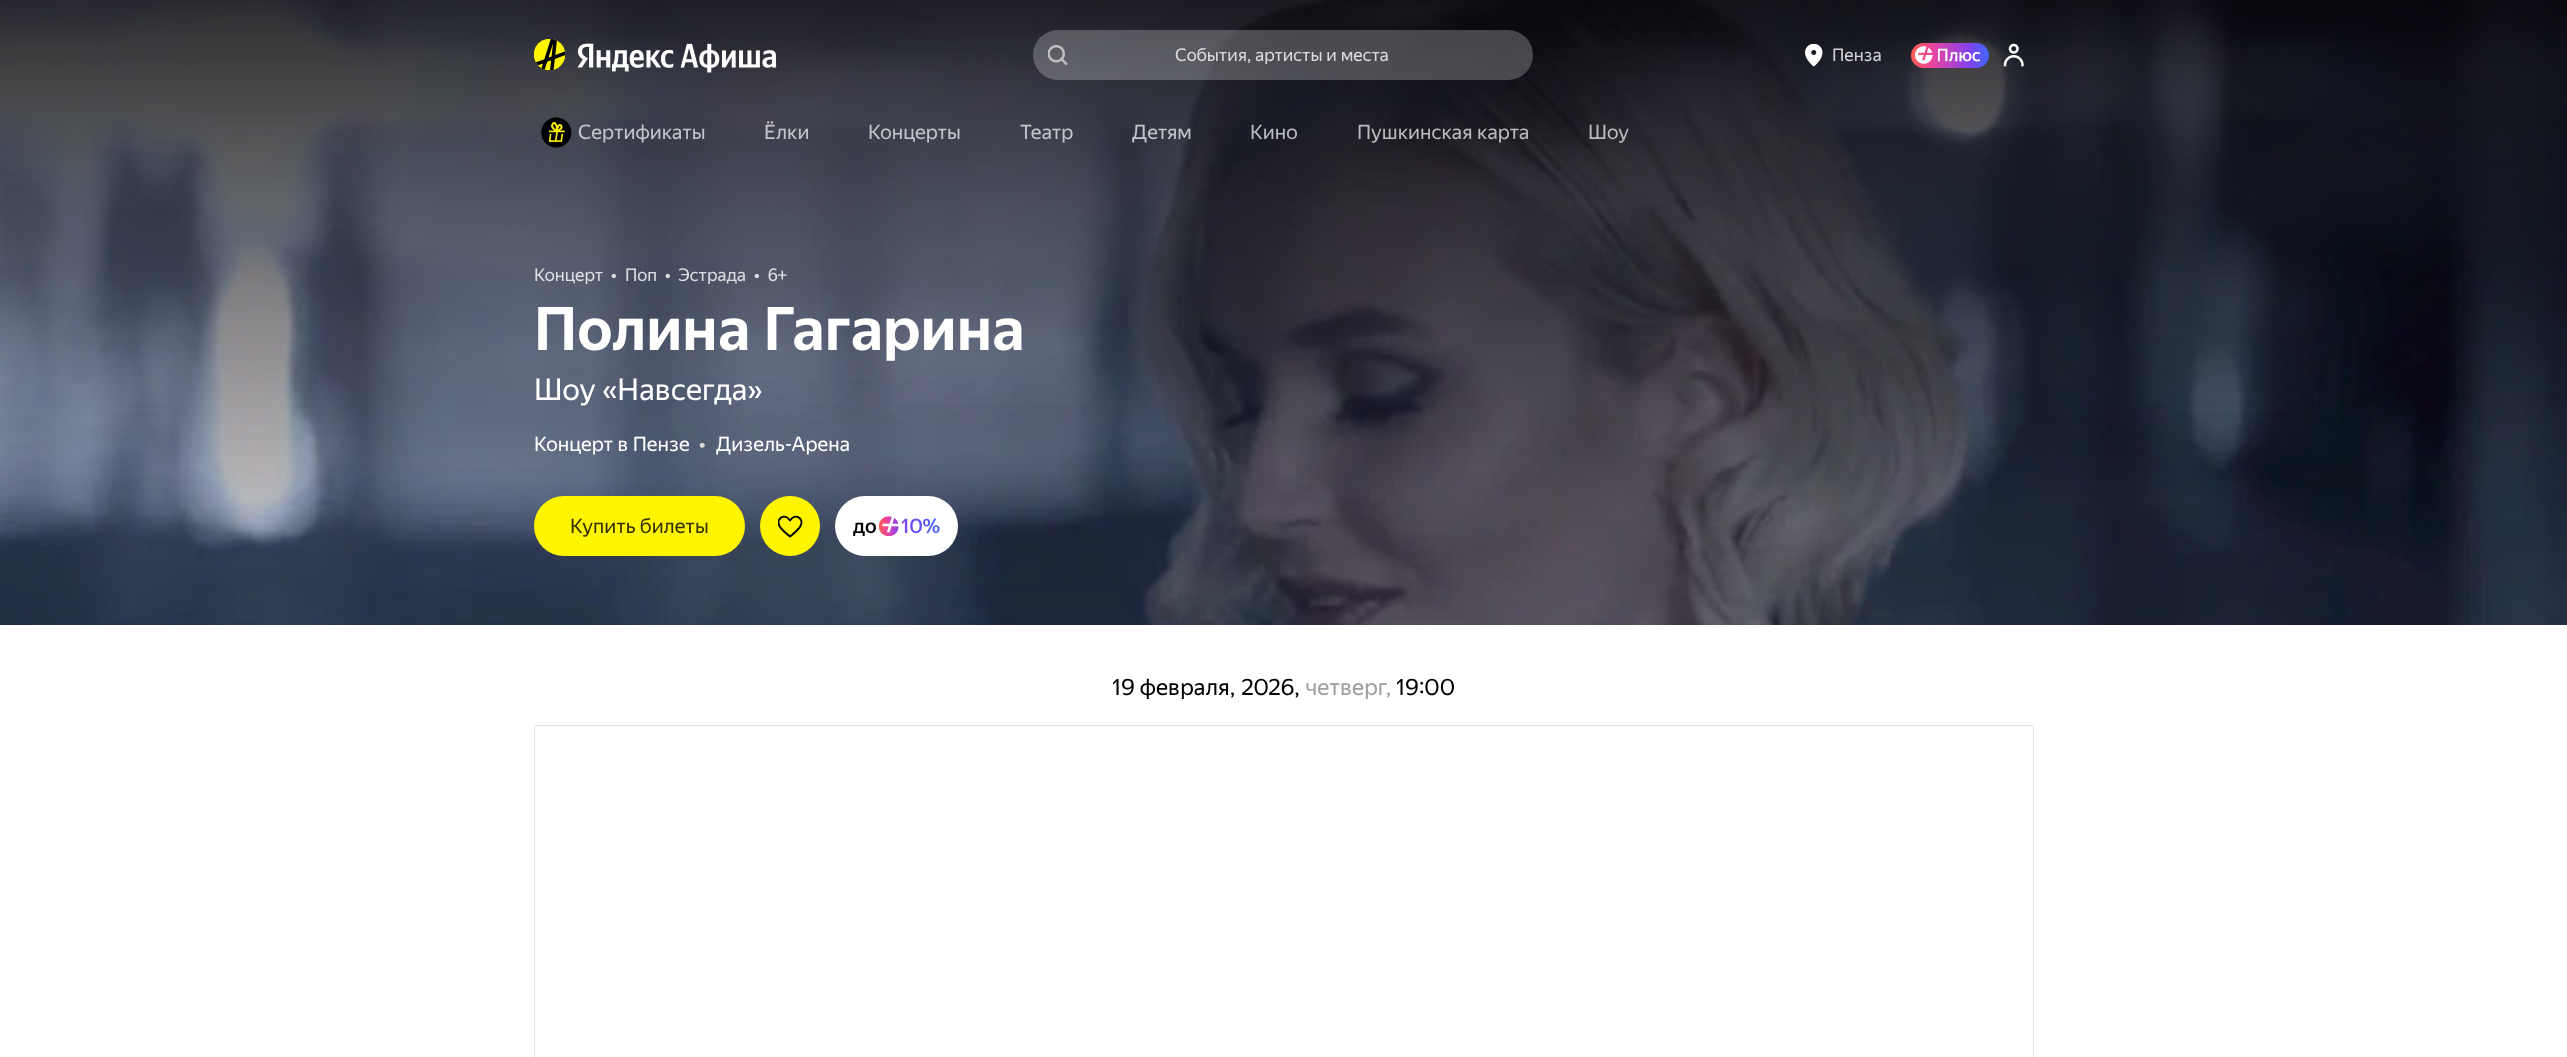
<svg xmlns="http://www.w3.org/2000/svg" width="2567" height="1057">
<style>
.a{font:17.5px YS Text;fill:#d2d2d4}
.b{font:20px YS Text;fill:#c4c5ca}
.c{font:20px YS Text;fill:#babbbe}
.d{font:17.5px YS Text;fill:#dddee2}
.e{font:bold 17.5px YS Text;fill:#dddee2}
.f{font:bold 60px YS Text;fill:#fff}
.g{font:30px YS Text;fill:#fff}
.h{font:20px YS Text;fill:#fff}
.i{font:bold 20px YS Text;fill:#d8d8d8}
.j{font:20px YS Text;fill:#333100}
.k{font:500 20px YS Text;fill:#000}
.l{font:500 20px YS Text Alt;fill:url(#g2)}
.m{font:22.5px YS Text Alt;fill:#000}
.n{font:22.5px YS Text;fill:#9e9e9e}
</style>
<defs>
<linearGradient id="g1" gradientUnits="userSpaceOnUse" x1="1911" y1="55" x2="1989" y2="55"><stop offset="0" stop-color="#ff5c4d"/><stop offset="0.27" stop-color="#eb469f"/><stop offset="0.75" stop-color="#8341ef"/><stop offset="1" stop-color="#3f68f9"/></linearGradient>
<clipPath id="clip1"><path d="M778 514h25v25H778z"/></clipPath>
<linearGradient id="g2" gradientUnits="userSpaceOnUse" x1="901" y1="526" x2="940" y2="526"><stop offset="0" stop-color="#8341ef"/><stop offset="1" stop-color="#3f68f9"/></linearGradient>
</defs>
<rect width="100%" height="100%" fill="#fff"/>
<image href="9.png" x="0" y="0" width="2567" height="625"/>
<image href="1.png" x="534" y="39" width="32" height="32"/>
<image href="2.png" x="577" y="43" width="200" height="30"/>
<image href="3.png" x="1048" y="45" width="20" height="20"/>
<image href="4.png" x="1805" y="44" width="18" height="23"/>
<rect fill="url(#g1)" x="1911" y="43" width="78" height="25" rx="12.5"/>
<image href="5.png" x="1915" y="46" width="18" height="18"/>
<image href="6.png" x="1938" y="48" width="42" height="14"/>
<image href="7.png" x="2003" y="43" width="21" height="24"/>
<image href="8.png" x="541" y="117" width="31" height="31"/>
<rect fill="#fff500" x="534" y="496" width="211" height="60" rx="30"/>
<circle fill="#fff500" cx="790" cy="526" r="30"/>
<g clip-path="url(#clip1)">
<path fill="none" stroke="#000" stroke-width="1.9" stroke-linecap="square" stroke-linejoin="round" d="M790 536.5c-3.5-3-8.5-6.5-10.5-10.5c-4-7.5 5.5-13.5 10.5-5.5c5-8 14.5-2 10.5 5.5c-2 4-7 7.5-10.5 10.5z"/>
</g>
<rect fill="#fff" x="835" y="496" width="123" height="60" rx="30"/>
<image href="10.png" x="879" y="516" width="20" height="20"/>
<path fill="none" stroke="#e2e2e2" d="M534.5 725.5h1499v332H534.5z"/>
<text class="a" x="1175" y="61">События, артисты и места</text>
<rect fill="#ffffff3d" x="1033" y="30" width="500" height="50" rx="25"/>
<text class="a" x="1832" y="61">Пенза</text>
<text class="b" x="578" y="139">Сертификаты</text>
<text class="b" x="764" y="139">Ёлки</text>
<text class="b" x="868" y="139">Концерты</text>
<text class="b" x="1020" y="139">Театр</text>
<text class="b" x="1132" y="139">Детям</text>
<text class="c" x="1250" y="139">Кино</text>
<text class="c" x="1357" y="139">Пушкинская карта</text>
<text class="c" x="1588" y="139">Шоу</text>
<text class="d" x="534" y="281">Концерт</text>
<text class="e" x="611" y="281">•</text>
<text class="d" x="625" y="281">Поп</text>
<text class="e" x="665" y="281">•</text>
<text class="d" x="678" y="281">Эстрада</text>
<text class="e" x="754" y="281">•</text>
<text class="d" x="768" y="281">6+</text>
<text class="f" x="534" y="350">Полина Гагарина</text>
<text class="g" x="534" y="400">Шоу «Навсегда»</text>
<text class="h" x="534" y="451">Концерт в Пензе</text>
<text class="i" x="699" y="451">•</text>
<text class="h" x="716" y="451">Дизель-Арена</text>
<text class="j" x="570" y="533">Купить билеты</text>
<text class="k" x="853" y="533">до</text>
<text class="l" x="901" y="533">10%</text>
<text class="m" x="1112" y="695">19 февраля,</text>
<text class="m" x="1241" y="695">2026,</text>
<text class="n" x="1305" y="695">четверг,</text>
<text class="m" x="1396" y="695">19:00</text>
</svg>
